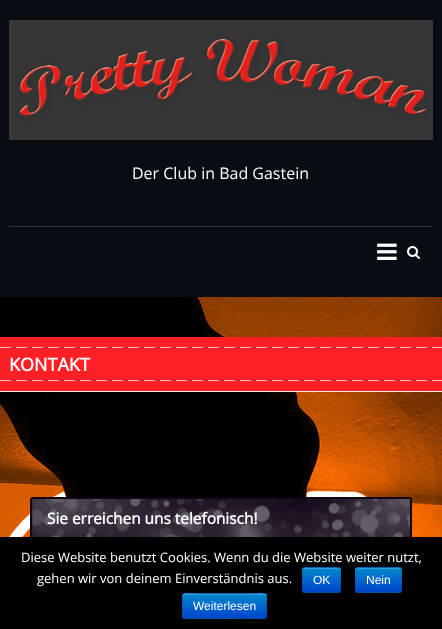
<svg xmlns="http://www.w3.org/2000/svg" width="442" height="629">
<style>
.a{font:16px Open Sans;fill:#fff}
.b{font:bold 18px Open Sans;fill:#fff}
.c{font:bold 15.4px Open Sans;fill:#fff}
.d{font:13px Open Sans;fill:#fff}
.e{font:12px Liberation Sans;fill:#fff}
</style>
<defs>
<clipPath id="clip1"><rect x="302" y="567" width="39" height="26" rx="3"/></clipPath>
<linearGradient id="g1" gradientUnits="userSpaceOnUse" x1="322" y1="568" x2="322" y2="592"><stop offset="0" stop-color="#08c"/><stop offset="1" stop-color="#04c"/></linearGradient>
<clipPath id="clip2"><rect x="355" y="567" width="47" height="26" rx="3"/></clipPath>
<linearGradient id="g2" gradientUnits="userSpaceOnUse" x1="379" y1="568" x2="379" y2="592"><stop offset="0" stop-color="#08c"/><stop offset="1" stop-color="#04c"/></linearGradient>
<clipPath id="clip3"><rect x="182" y="593" width="85" height="26" rx="3"/></clipPath>
<linearGradient id="g3" gradientUnits="userSpaceOnUse" x1="225" y1="594" x2="225" y2="618"><stop offset="0" stop-color="#08c"/><stop offset="1" stop-color="#04c"/></linearGradient>
</defs>
<rect width="100%" height="100%" fill="#fff"/>
<image href="1.png" x="0" y="297" width="442" height="240"/>
<path fill="#080c13" d="M0 0h442v297H0z"/>
<path fill="#2d3036" d="M9 226h424v1H9z"/>
<image href="2.png" x="9" y="20" width="424" height="120"/>
<image href="3.png" x="377" y="243" width="20" height="17"/>
<image href="4.png" x="407" y="246" width="13" height="13"/>
<path fill="#ff1f25" d="M0 337h442v54H0z"/>
<path fill="#eee" d="M0 391h442v1H0z"/>
<image href="5.png" x="0" y="347" width="442" height="1"/>
<image href="5.png" x="0" y="380" width="442" height="1"/>
<rect fill="none" stroke="#0e0512" stroke-width="2" x="31" y="498" width="380" height="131" rx="2"/>
<path fill="#110617" d="M34 499h374c1 0 2 1 2 2v37h-378v-37c0-1 1-2 2-2z"/>
<image href="6.png" x="32" y="499" width="378" height="38"/>
<path fill="#000" d="M0 537h442v92H0z"/>
<rect fill="#006dcc" x="302" y="567" width="39" height="26" rx="3"/>
<g clip-path="url(#clip1)">
<path fill="url(#g1)" d="M302 568h39v24H302z"/>
</g>
<path fill="#ffffff33" d="M305 569h33c1 0 2 1 2 2c0-4.5-3.5-3-7.5-3h-22c-4 0-7.5-1.5-7.5 3c0-1 1-2 2-2z"/>
<path fill="none" stroke="#00000040" d="M340 592c-.5 0-1.5 .5-2 .5h-33c-.5 0-1.5-.5-2-.5"/>
<path fill="none" stroke="#0000001a" d="M303 592c0-.5-.5-1.5-.5-2v-20c0-.5 .5-1.5 .5-2c.5 0 1.5-.5 2-.5h33c.5 0 1.5 .5 2 .5c0 .5 .5 1.5 .5 2v20c0 .5-.5 1.5-.5 2"/>
<rect fill="#006dcc" x="355" y="567" width="47" height="26" rx="3"/>
<g clip-path="url(#clip2)">
<path fill="url(#g2)" d="M355 568h47v24H355z"/>
</g>
<path fill="#ffffff33" d="M358 569h41c1 0 2 1 2 2c0-5-5-3-9-3h-27c-4 0-9-2-9 3c0-1 1-2 2-2z"/>
<path fill="none" stroke="#00000040" d="M401 592c-1.5 1-43.5 1-45 0"/>
<path fill="none" stroke="#0000001a" d="M356 592c-1.5-2-.5-9.5-.5-12c0-13-2.5-12.5 9.5-12.5h27c12 0 9.5-.5 9.5 12.5c0 2.5 1 10-.5 12"/>
<rect fill="#006dcc" x="182" y="593" width="85" height="26" rx="3"/>
<g clip-path="url(#clip3)">
<path fill="url(#g3)" d="M182 594h85v24H182z"/>
</g>
<path fill="#ffffff33" d="M185 595h79c1 0 2 1 2 2c0-7-12-3-15-3h-53c-3 0-15-4-15 3c0-1 1-2 2-2z"/>
<path fill="none" stroke="#00000040" d="M266 618l-2 .5h-13c-7.5 0-65.5 1-67.5-.5h-.5"/>
<path fill="none" stroke="#0000001a" d="M183 618c-1.5-2-.5-6.5-.5-8.5c0-19-3.5-16 15.5-16h53c19 0 15.5-3 15.5 16c0 2 1 6.5-.5 8.5"/>
<text class="a" x="132" y="179">Der Club in Bad Gastein</text>
<text class="b" x="9" y="371">KONTAKT</text>
<text class="c" x="47" y="524">Sie erreichen uns telefonisch!</text>
<text class="d" x="21" y="562">Diese Website benutzt Cookies. Wenn du die Website weiter nutzt,</text>
<text class="d" x="37" y="583">gehen wir von deinem Einverständnis aus.</text>
<text class="e" x="313" y="584">OK</text>
<text class="e" x="366" y="584">Nein</text>
<text class="e" x="193" y="610">Weiterlesen</text>
</svg>
